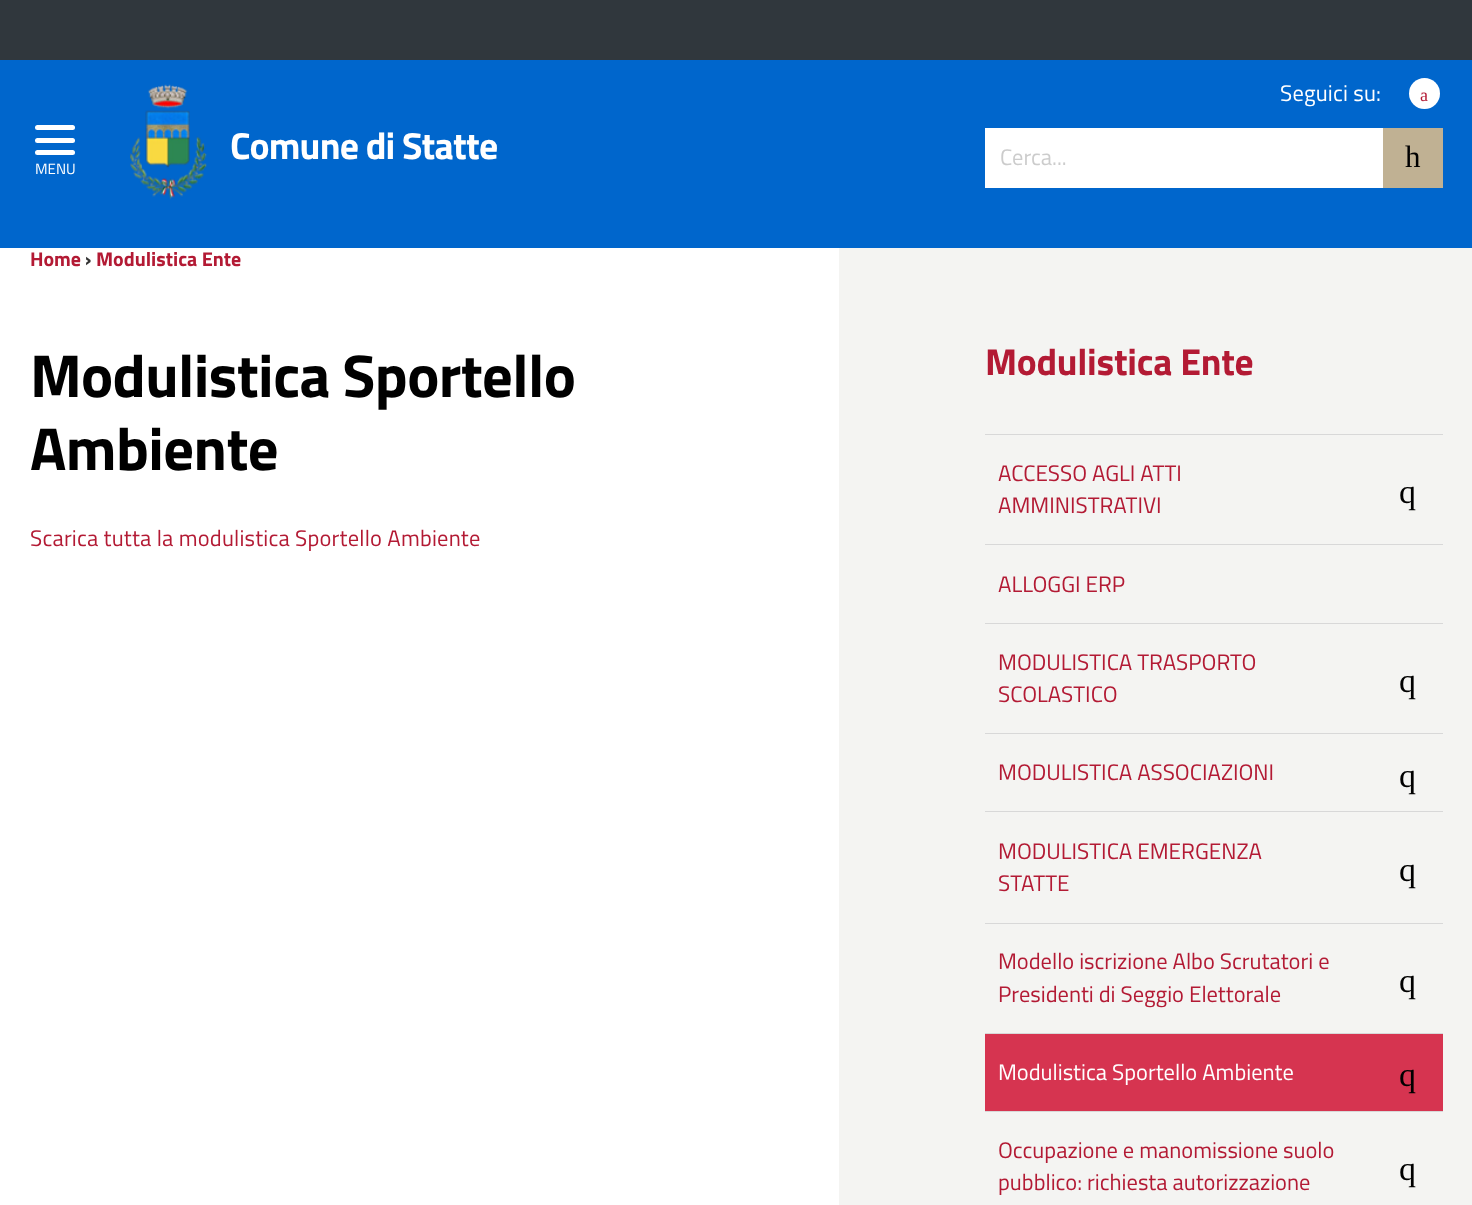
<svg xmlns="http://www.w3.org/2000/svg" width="1472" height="1205">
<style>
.a{font:bold 37.75px Titillium Web;letter-spacing:-0.8px;fill:#fff}
.b{font:22.5px Titillium Web;letter-spacing:0.2px;fill:#fff}
.c{font:18px Liberation Serif;letter-spacing:0.2px;fill:#b31a34}
.d{font:22.5px Titillium Web;fill:#ccc}
.e{font:31px Liberation Serif;fill:#000}
.f{font:15px Titillium Web;fill:#fff}
.g{font:bold 20px Titillium Web;fill:#b31a34}
.h{font:bold 20px Titillium Web;fill:#333}
.i{font:bold 60.5px Titillium Web;letter-spacing:-0.6px;fill:#000}
.j{font:22.5px Titillium Web;letter-spacing:0.2px;fill:#b31a34}
.k{font:bold 37.5px Titillium Web;letter-spacing:-0.25px;fill:#b31a34}
.l{font:22.5px Titillium Web;fill:#b31a34}
.m{font:34px Liberation Serif;fill:#000}
.n{font:22.5px Titillium Web;fill:#fff}
</style>
<rect width="100%" height="100%" fill="#fff"/>
<path fill="#06c" d="M0 60h1472v188H0z"/>
<path fill="#30373d" d="M0 0h1472v60H0z"/>
<image href="1.png" x="130" y="84" width="77" height="116"/>
<circle fill="#fff" cx="1424.5" cy="93.5" r="15.5"/>
<path fill="#fff" d="M985 128h398v60H985z"/>
<path fill="#c0b193" d="M1383 128h60v60H1383z"/>
<rect fill="#fff" x="35" y="125" width="40" height="5" rx="2.5"/>
<rect fill="#fff" x="35" y="138" width="40" height="5" rx="2.5"/>
<rect fill="#fff" x="35" y="150" width="40" height="5" rx="2.5"/>
<path fill="#f4f4f2" d="M839 248h633v957H839z"/>
<path fill="#d8d8d8" d="M985 434h458v1H985z"/>
<path fill="#d8d8d8" d="M985 544h458v1H985z"/>
<path fill="#d8d8d8" d="M985 623h458v1H985z"/>
<path fill="#d8d8d8" d="M985 733h458v1H985z"/>
<path fill="#d8d8d8" d="M985 811h458v1H985z"/>
<path fill="#d8d8d8" d="M985 923h458v1H985z"/>
<path fill="#d8d8d8" d="M985 1033h458v1H985z"/>
<path fill="#d8d8d8" d="M985 1111h458v1H985z"/>
<path fill="#d63450" d="M985 1034h458v77H985z"/>
<text class="a" x="230" y="159">Comune di Statte</text>
<text class="b" x="1280" y="101">Seguici su:</text>
<text class="c" x="1420" y="101">a</text>
<text class="d" x="1000" y="165">Cerca...</text>
<text class="e" x="1405" y="167">h</text>
<text class="f" x="35" y="174">MENU</text>
<text class="g" x="30" y="266">Home</text>
<text class="h" x="85" y="266">›</text>
<text class="g" x="96" y="266">Modulistica Ente</text>
<text class="i" x="30" y="397">Modulistica Sportello</text>
<text class="i" x="30" y="470">Ambiente</text>
<text class="j" x="30" y="546">Scarica tutta la modulistica Sportello Ambiente</text>
<text class="k" x="985" y="375">Modulistica Ente</text>
<text class="l" x="998" y="481">ACCESSO AGLI ATTI</text>
<text class="l" x="998" y="513">AMMINISTRATIVI</text>
<text class="m" x="1399" y="503">q</text>
<text class="l" x="998" y="592">ALLOGGI ERP</text>
<text class="l" x="998" y="670">MODULISTICA TRASPORTO</text>
<text class="l" x="998" y="702">SCOLASTICO</text>
<text class="m" x="1399" y="692">q</text>
<text class="l" x="998" y="780">MODULISTICA ASSOCIAZIONI</text>
<text class="m" x="1399" y="787">q</text>
<text class="l" x="998" y="859">MODULISTICA EMERGENZA</text>
<text class="l" x="998" y="891">STATTE</text>
<text class="m" x="1399" y="881">q</text>
<text class="l" x="998" y="969">Modello iscrizione Albo Scrutatori e</text>
<text class="l" x="998" y="1002">Presidenti di Seggio Elettorale</text>
<text class="m" x="1399" y="992">q</text>
<text class="n" x="998" y="1080">Modulistica Sportello Ambiente</text>
<text class="m" x="1399" y="1086">q</text>
<text class="l" x="998" y="1158">Occupazione e manomissione suolo</text>
<text class="l" x="998" y="1190">pubblico: richiesta autorizzazione</text>
<text class="m" x="1399" y="1180">q</text>
</svg>
